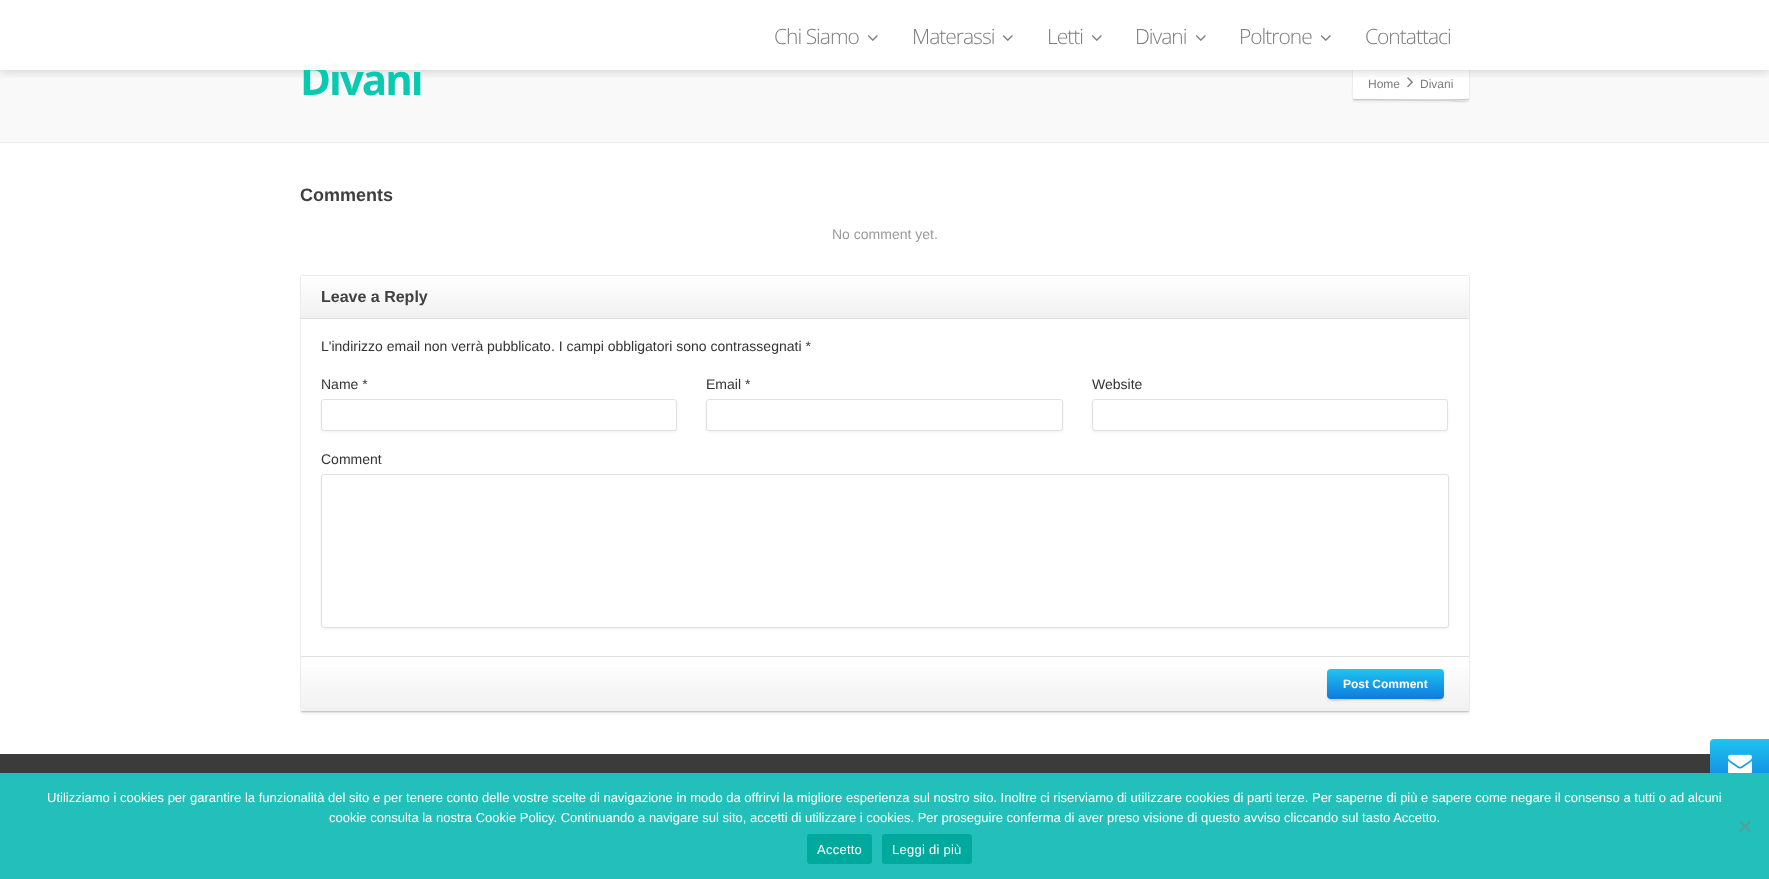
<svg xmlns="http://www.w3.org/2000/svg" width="1769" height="879">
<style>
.a{font:bold 42px Open Sans;letter-spacing:-2px;fill:#07cab1}
.b{font:300 21px Open Sans;letter-spacing:-1px;fill:#7c7c7c}
.c{font:12px Liberation Sans;fill:#7c7c7c}
.d{font:bold 18px Liberation Sans;fill:#404040}
.e{font:14px Liberation Sans;fill:#9a9a9a}
.f{font:bold 16px Liberation Sans;fill:#404040}
.g{font:14px Liberation Sans;fill:#333}
.h{font:bold 12px Liberation Sans;fill:#fff}
.i{font:13px Liberation Sans;fill:#fff}
.j{font:13px Liberation Sans;letter-spacing:0.25px;fill:#fff}
</style>
<defs>
<clipPath id="clip1"><path d="M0 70h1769v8H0z"/></clipPath>
<linearGradient id="g1" gradientUnits="userSpaceOnUse" x1="885" y1="276" x2="885" y2="318"><stop offset="0" stop-color="#fff"/><stop offset="1" stop-color="#f1f1f1"/></linearGradient>
<linearGradient id="g2" gradientUnits="userSpaceOnUse" x1="885" y1="657" x2="885" y2="711"><stop offset="0" stop-color="#fff"/><stop offset="1" stop-color="#f1f1f1"/></linearGradient>
<linearGradient id="g3" gradientUnits="userSpaceOnUse" x1="1386" y1="669" x2="1386" y2="699"><stop offset="0" stop-color="#1fc4f0"/><stop offset="1" stop-color="#0e7add"/></linearGradient>
<linearGradient id="g4" gradientUnits="userSpaceOnUse" x1="1742" y1="739" x2="1742" y2="791"><stop offset="0" stop-color="#1fc4f0"/><stop offset="1" stop-color="#0e7add"/></linearGradient>
</defs>
<rect width="100%" height="100%" fill="#fff"/>
<path fill="#f9f9f9" d="M0 24h1769v118H0z"/>
<path fill="#e8e8e8" d="M1352 97c0 2 1 4 3 4h93c2 0 22 5 22-4l-1 2l-2 1h-112c-2 0-3-1-3-3z"/>
<path fill="#00000008" d="M1352 97v3c0 2 1 3 3 3h112c2 0 3-1 3-3v-3l-1 2l-2 1h-112c-2 0-3-1-3-3z"/>
<rect fill="#fff" x="1352" y="66" width="118" height="34" rx="3"/>
<path fill="none" stroke="#00000038" d="M1469 99h-.5c-2 1.5-85.5 .5-95 .5h-18.5l-2-.5"/>
<path fill="none" stroke="#ebebeb" d="M1353 99c-1.5-2-.5-9-.5-11.5v-14c0-1.5-1-7 2.5-7h112c3.5 0 2.5 5.5 2.5 7v14c0 2.5 1 9.5-.5 11.5"/>
<image href="2.png" x="1407" y="77" width="6" height="11"/>
<g clip-path="url(#clip1)">
<path fill="#00000026" filter="blur(5px)" d="M0 2h1769v70H0z"/>
</g>
<path fill="#ebebeb" d="M0 142h1769v1H0z"/>
<path fill="#ededed" d="M300 709v1c0 2 1 3 3 3h1164c2 0 3-1 3-3v-1c0 2-1 3-3 3h-1164c-2 0-3-1-3-3z"/>
<path fill="#00000008" d="M300 709v3c0 2 1 3 3 3h1164c2 0 3-1 3-3v-3c0 2-1 3-3 3h-1164c-2 0-3-1-3-3z"/>
<rect fill="#fff" x="300" y="275" width="1170" height="437" rx="3"/>
<path fill="none" stroke="#00000038" d="M1469 711l-2 .5h-1164l-2-.5"/>
<path fill="none" stroke="#ebebeb" d="M301 711l-.5-2v-431l.5-2l2-.5h1164l2 .5l.5 2v431l-.5 2"/>
<path fill="url(#g1)" d="M301 276h1168v42H301z"/>
<path fill="#dfdfdf" d="M301 318h1168v1H301z"/>
<rect fill="#b4b4b433" filter="blur(1px)" x="321" y="400" width="356" height="32" rx="3"/>
<rect fill="#fff" stroke="#e1e1e1" x="321.5" y="399.5" width="355" height="31" rx="2.5"/>
<rect fill="#b4b4b433" filter="blur(1px)" x="706" y="400" width="357" height="32" rx="3"/>
<rect fill="#fff" stroke="#e1e1e1" x="706.5" y="399.5" width="356" height="31" rx="2.5"/>
<rect fill="#b4b4b433" filter="blur(1px)" x="1092" y="400" width="356" height="32" rx="3"/>
<rect fill="#fff" stroke="#e1e1e1" x="1092.5" y="399.5" width="355" height="31" rx="2.5"/>
<rect fill="#b4b4b433" filter="blur(1px)" x="321" y="475" width="1128" height="154" rx="3"/>
<rect fill="#fff" stroke="#e1e1e1" x="321.5" y="474.5" width="1127" height="153" rx="2.5"/>
<path fill="url(#g2)" d="M301 667h1168v44H301z"/>
<path fill="#dfdfdf" d="M301 656h1168v1H301z"/>
<path fill="#e0e0e0" d="M1327 695c0 10 19 5 22 5h73c3 0 22 5 22-5c0 2-2 4-4 4h-109c-2 0-4-2-4-4z"/>
<rect fill="#0000000d" filter="blur(1px)" x="1327" y="671" width="117" height="30" rx="4"/>
<rect fill="url(#g3)" x="1327" y="669" width="117" height="30" rx="4"/>
<path fill="#3b3b3b" d="M0 754h1710v19H0z"/>
<rect fill="url(#g4)" x="1710" y="739" width="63" height="52" rx="4"/>
<image href="3.png" x="1728" y="754" width="24" height="19"/>
<path fill="#23c0bb" d="M0 773h1769v106H0z"/>
<path fill="#52a09e" d="M1749.5 820.5l1.5 1.5l-10.5 10.5l-1.5-1.5z"/>
<path fill="#52a09e" d="M1739 822l1.5-1.5l10.5 10.5l-1.5 1.5z"/>
<rect fill="#00a99d" x="807" y="834" width="65" height="30" rx="3"/>
<rect fill="#00a99d" x="882" y="834" width="90" height="30" rx="3"/>
<text class="a" x="300" y="95">Divani</text>
<path fill="#fffffff2" d="M0 24h1769v46H0z"/>
<text class="b" x="1365" y="44">Contattaci</text>
<image href="1.png" x="1320" y="35" width="11" height="6"/>
<text class="b" x="1239" y="44">Poltrone</text>
<image href="1.png" x="1195" y="35" width="11" height="6"/>
<text class="b" x="1135" y="44">Divani</text>
<image href="1.png" x="1091" y="35" width="11" height="6"/>
<text class="b" x="1047" y="44">Letti</text>
<image href="1.png" x="1002" y="35" width="11" height="6"/>
<text class="b" x="912" y="44">Materassi</text>
<image href="1.png" x="867" y="35" width="11" height="6"/>
<text class="b" x="774" y="44">Chi Siamo</text>
<text class="c" x="1368" y="88">Home</text>
<text class="c" x="1420" y="88">Divani</text>
<text class="d" x="300" y="201">Comments</text>
<text class="e" x="832" y="239">No comment yet.</text>
<text class="f" x="321" y="302">Leave a Reply</text>
<text class="g" x="321" y="351">L'indirizzo email non verrà pubblicato. I campi obbligatori sono contrassegnati *</text>
<text class="g" x="321" y="389">Name *</text>
<text class="g" x="706" y="389">Email *</text>
<text class="g" x="1092" y="389">Website</text>
<text class="g" x="321" y="464">Comment</text>
<text class="h" x="1343" y="688">Post Comment</text>
<text class="i" x="47" y="802">Utilizziamo i cookies per garantire la funzionalità del sito e per tenere conto delle vostre scelte di navigazione in modo da offrirvi la migliore esperienza sul nostro sito. Inoltre ci riserviamo di utilizzare cookies di parti terze. Per saperne di più e sapere come negare il consenso a tutti o ad alcuni</text>
<text class="i" x="329" y="822">cookie consulta la nostra Cookie Policy. Continuando a navigare sul sito, accetti di utilizzare i cookies. Per proseguire conferma di aver preso visione di questo avviso cliccando sul tasto Accetto.</text>
<text class="j" x="817" y="854">Accetto</text>
<text class="j" x="892" y="854">Leggi di più</text>
</svg>
